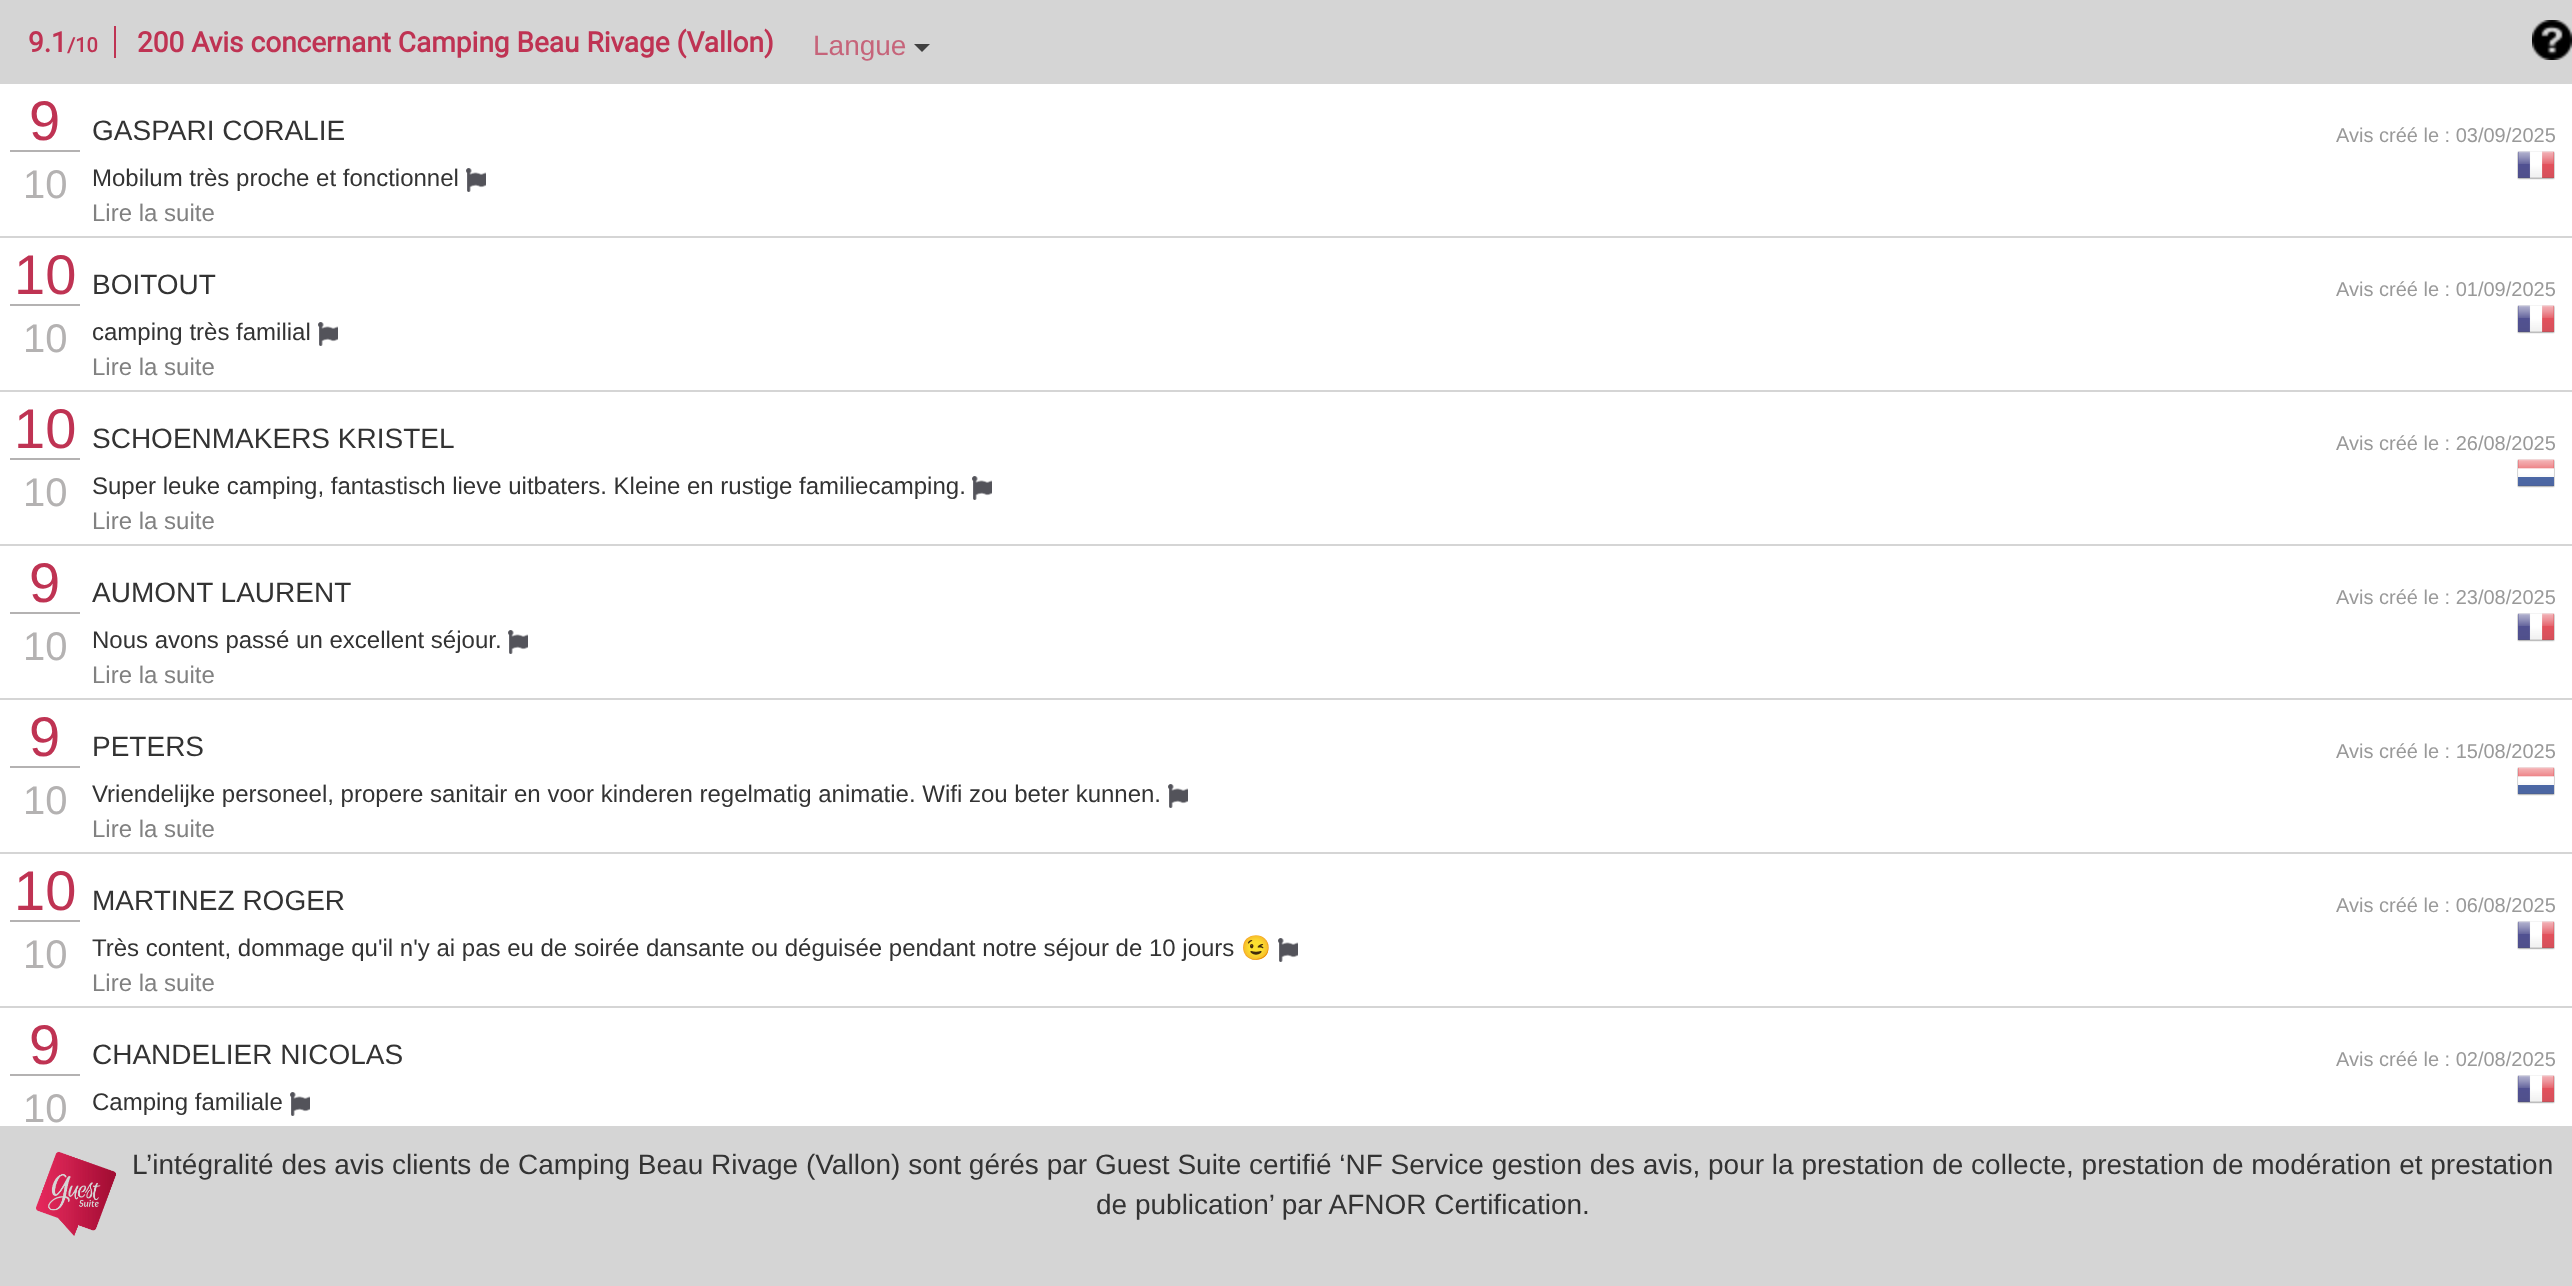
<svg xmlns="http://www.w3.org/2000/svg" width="2572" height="1286">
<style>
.a{font:bold 28px Roboto;fill:#bf3353}
.b{font:bold 20px Roboto;fill:#bf3353}
.c{font:28px Liberation Sans;fill:#c6647a}
.d{font:56px Liberation Sans;fill:#bf3353}
.e{font:40px Liberation Sans;fill:#b4b2b2}
.f{font:28px Liberation Sans;fill:#333}
.g{font:20px Liberation Sans;fill:#999}
.h{font:24px Liberation Sans;fill:#333}
.i{font:24px Liberation Sans;fill:#818181}
.j{font:24px Noto Color Emoji;fill:#333}
</style>
<rect width="100%" height="100%" fill="#fff"/>
<path fill="#d5d5d5" d="M0 0h2572v84H0z"/>
<path fill="#bf3353" d="M114 26h2v32H114z"/>
<path fill="#404040" d="M914 44h16l-8 8z"/>
<image href="1.png" x="2532" y="20" width="40" height="40"/>
<path fill="#b4b2b2" d="M10 150h70v2H10z"/>
<path fill="#d5d5d5" d="M0 236h2572v2H0z"/>
<image href="2.png" x="2517" y="151" width="38" height="29"/>
<image href="3.png" x="466" y="168" width="20" height="24"/>
<path fill="#b4b2b2" d="M10 304h70v2H10z"/>
<path fill="#d5d5d5" d="M0 390h2572v2H0z"/>
<image href="2.png" x="2517" y="305" width="38" height="29"/>
<image href="4.png" x="318" y="322" width="20" height="24"/>
<path fill="#b4b2b2" d="M10 458h70v2H10z"/>
<path fill="#d5d5d5" d="M0 544h2572v2H0z"/>
<image href="5.png" x="2517" y="459" width="38" height="29"/>
<image href="6.png" x="972" y="476" width="20" height="24"/>
<path fill="#b4b2b2" d="M10 612h70v2H10z"/>
<path fill="#d5d5d5" d="M0 698h2572v2H0z"/>
<image href="2.png" x="2517" y="613" width="38" height="29"/>
<image href="4.png" x="508" y="630" width="20" height="24"/>
<path fill="#b4b2b2" d="M10 766h70v2H10z"/>
<path fill="#d5d5d5" d="M0 852h2572v2H0z"/>
<image href="5.png" x="2517" y="767" width="38" height="29"/>
<image href="4.png" x="1168" y="784" width="20" height="24"/>
<path fill="#b4b2b2" d="M10 920h70v2H10z"/>
<path fill="#d5d5d5" d="M0 1006h2572v2H0z"/>
<image href="7.png" x="2517" y="921" width="38" height="29"/>
<image href="4.png" x="1278" y="938" width="20" height="24"/>
<path fill="#b4b2b2" d="M10 1074h70v2H10z"/>
<image href="2.png" x="2517" y="1075" width="38" height="29"/>
<image href="3.png" x="290" y="1092" width="20" height="24"/>
<path fill="#d5d5d5" d="M0 1126h2572v160H0z"/>
<image href="8.png" x="36" y="1151" width="80" height="85"/>
<text class="a" x="28" y="52">9.1</text>
<text class="b" x="67" y="52">/10</text>
<text class="a" x="137" y="52">200 Avis concernant Camping Beau Rivage (Vallon)</text>
<text class="c" x="813" y="55">Langue</text>
<text class="d" x="29" y="140">9</text>
<text class="e" x="23" y="198">10</text>
<text class="f" x="92" y="140">GASPARI CORALIE</text>
<text class="g" x="2336" y="142">Avis créé le : 03/09/2025</text>
<text class="h" x="92" y="186">Mobilum très proche et fonctionnel</text>
<text class="i" x="92" y="221">Lire la suite</text>
<text class="d" x="14" y="294">10</text>
<text class="e" x="23" y="352">10</text>
<text class="f" x="92" y="294">BOITOUT</text>
<text class="g" x="2336" y="296">Avis créé le : 01/09/2025</text>
<text class="h" x="92" y="340">camping très familial</text>
<text class="i" x="92" y="375">Lire la suite</text>
<text class="d" x="14" y="448">10</text>
<text class="e" x="23" y="506">10</text>
<text class="f" x="92" y="448">SCHOENMAKERS KRISTEL</text>
<text class="g" x="2336" y="450">Avis créé le : 26/08/2025</text>
<text class="h" x="92" y="494">Super leuke camping, fantastisch lieve uitbaters. Kleine en rustige familiecamping.</text>
<text class="i" x="92" y="529">Lire la suite</text>
<text class="d" x="29" y="602">9</text>
<text class="e" x="23" y="660">10</text>
<text class="f" x="92" y="602">AUMONT LAURENT</text>
<text class="g" x="2336" y="604">Avis créé le : 23/08/2025</text>
<text class="h" x="92" y="648">Nous avons passé un excellent séjour.</text>
<text class="i" x="92" y="683">Lire la suite</text>
<text class="d" x="29" y="756">9</text>
<text class="e" x="23" y="814">10</text>
<text class="f" x="92" y="756">PETERS</text>
<text class="g" x="2336" y="758">Avis créé le : 15/08/2025</text>
<text class="h" x="92" y="802">Vriendelijke personeel, propere sanitair en voor kinderen regelmatig animatie. Wifi zou beter kunnen.</text>
<text class="i" x="92" y="837">Lire la suite</text>
<text class="d" x="14" y="910">10</text>
<text class="e" x="23" y="968">10</text>
<text class="f" x="92" y="910">MARTINEZ ROGER</text>
<text class="g" x="2336" y="912">Avis créé le : 06/08/2025</text>
<text class="h" x="92" y="956">Très content, dommage qu'il n'y ai pas eu de soirée dansante ou déguisée pendant notre séjour de 10 jours</text>
<text class="j" x="1241" y="956">😉</text>
<text class="i" x="92" y="991">Lire la suite</text>
<text class="d" x="29" y="1064">9</text>
<text class="e" x="23" y="1122">10</text>
<text class="f" x="92" y="1064">CHANDELIER NICOLAS</text>
<text class="g" x="2336" y="1066">Avis créé le : 02/08/2025</text>
<text class="h" x="92" y="1110">Camping familiale</text>
<text class="f" x="132" y="1174">L’intégralité des avis clients de Camping Beau Rivage (Vallon) sont gérés par Guest Suite certifié ‘NF Service gestion des avis, pour la prestation de collecte, prestation de modération et prestation</text>
<text class="f" x="1096" y="1214">de publication’ par AFNOR Certification.</text>
</svg>
